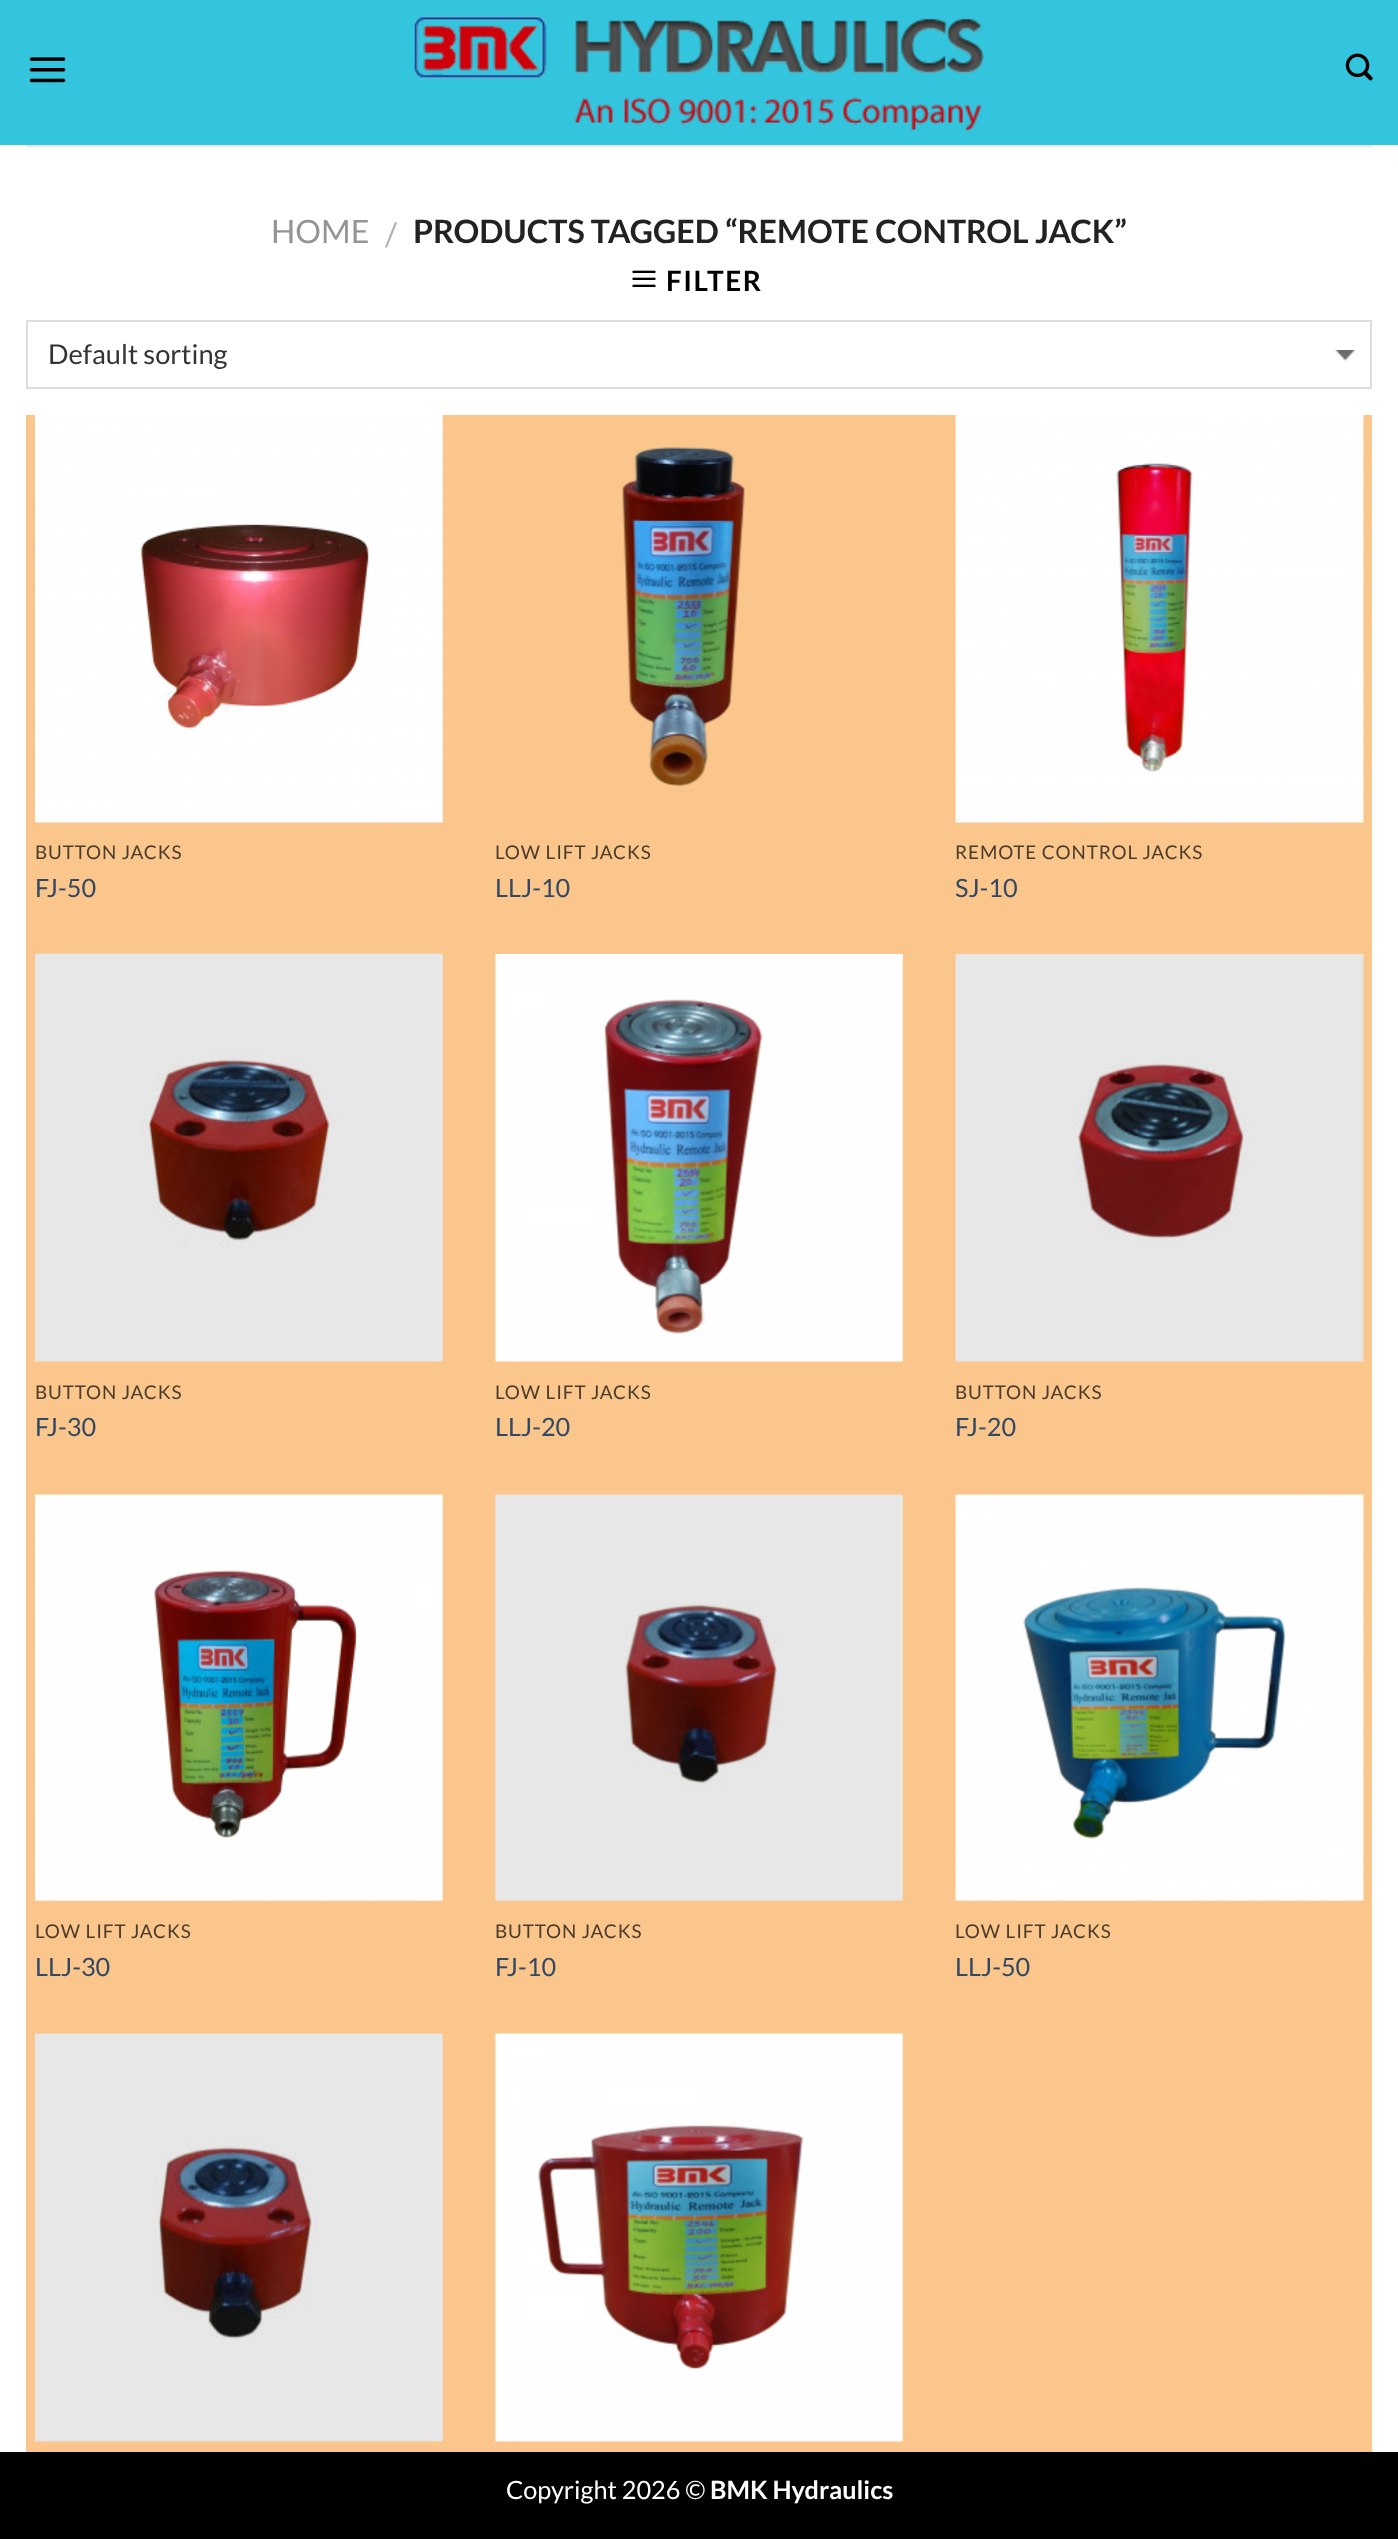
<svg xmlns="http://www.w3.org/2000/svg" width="1398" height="2539">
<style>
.a{font:32.2px Lato;fill:#949494}
.b{font:32.2px Lato;fill:#b2b2b2}
.c{font:bold 32.2px Lato;fill:#222}
.d{font:bold 28px Lato;letter-spacing:1.5px;fill:#000}
.e{font:27.25px Lato;fill:#333}
.f{font:18.9px Lato;letter-spacing:0.9px;fill:#4b3b2a}
.g{font:25.25px Lato;fill:#334862}
.h{font:25.25px Lato;fill:#fff}
.i{font:bold 25.25px Lato;fill:#fff}
</style>
<rect width="100%" height="100%" fill="#fff"/>
<path fill="#33c5dd" d="M0 0h1398v145H0z"/>
<image href="1.png" x="29" y="57" width="37" height="26"/>
<image href="2.png" x="414" y="15" width="570" height="117"/>
<image href="3.png" x="1345" y="53" width="28" height="28"/>
<path fill="#e6e6e6" d="M26 145h1346v2H26z"/>
<image href="4.png" x="632" y="270" width="24" height="17"/>
<image href="5.png" x="1335" y="350" width="20" height="11"/>
<path fill="none" stroke="#ddd" stroke-width="2" d="M27 321h1344v67H27z"/>
<path fill="#fbc68c" d="M26 415h1346v2037H26z"/>
<image href="6.png" x="35" y="415" width="408" height="408"/>
<image href="7.png" x="622" y="447" width="123" height="339"/>
<image href="8.png" x="955" y="415" width="409" height="408"/>
<image href="9.png" x="35" y="953" width="408" height="409"/>
<image href="10.png" x="495" y="954" width="408" height="408"/>
<image href="11.png" x="955" y="954" width="409" height="408"/>
<image href="12.png" x="35" y="1494" width="408" height="407"/>
<image href="13.png" x="495" y="1494" width="408" height="407"/>
<image href="14.png" x="955" y="1494" width="409" height="407"/>
<image href="15.png" x="35" y="2033" width="408" height="409"/>
<image href="16.png" x="495" y="2033" width="408" height="409"/>
<path fill="#000" d="M0 2452h1398v87H0z"/>
<text class="a" x="271" y="243">HOME</text>
<text class="b" x="385" y="246">/</text>
<text class="c" x="413" y="243">PRODUCTS TAGGED “REMOTE CONTROL JACK”</text>
<text class="d" x="666" y="291">FILTER</text>
<text class="e" x="48" y="364">Default sorting</text>
<text class="f" x="35" y="859">BUTTON JACKS</text>
<text class="g" x="35" y="897">FJ-50</text>
<text class="f" x="495" y="859">LOW LIFT JACKS</text>
<text class="g" x="495" y="897">LLJ-10</text>
<text class="f" x="955" y="859">REMOTE CONTROL JACKS</text>
<text class="g" x="955" y="897">SJ-10</text>
<text class="f" x="35" y="1399">BUTTON JACKS</text>
<text class="g" x="35" y="1436">FJ-30</text>
<text class="f" x="495" y="1399">LOW LIFT JACKS</text>
<text class="g" x="495" y="1436">LLJ-20</text>
<text class="f" x="955" y="1399">BUTTON JACKS</text>
<text class="g" x="955" y="1436">FJ-20</text>
<text class="f" x="35" y="1938">LOW LIFT JACKS</text>
<text class="g" x="35" y="1976">LLJ-30</text>
<text class="f" x="495" y="1938">BUTTON JACKS</text>
<text class="g" x="495" y="1976">FJ-10</text>
<text class="f" x="955" y="1938">LOW LIFT JACKS</text>
<text class="g" x="955" y="1976">LLJ-50</text>
<text class="h" x="506" y="2499">Copyright 2026 ©</text>
<text class="i" x="710" y="2499">BMK Hydraulics</text>
</svg>
